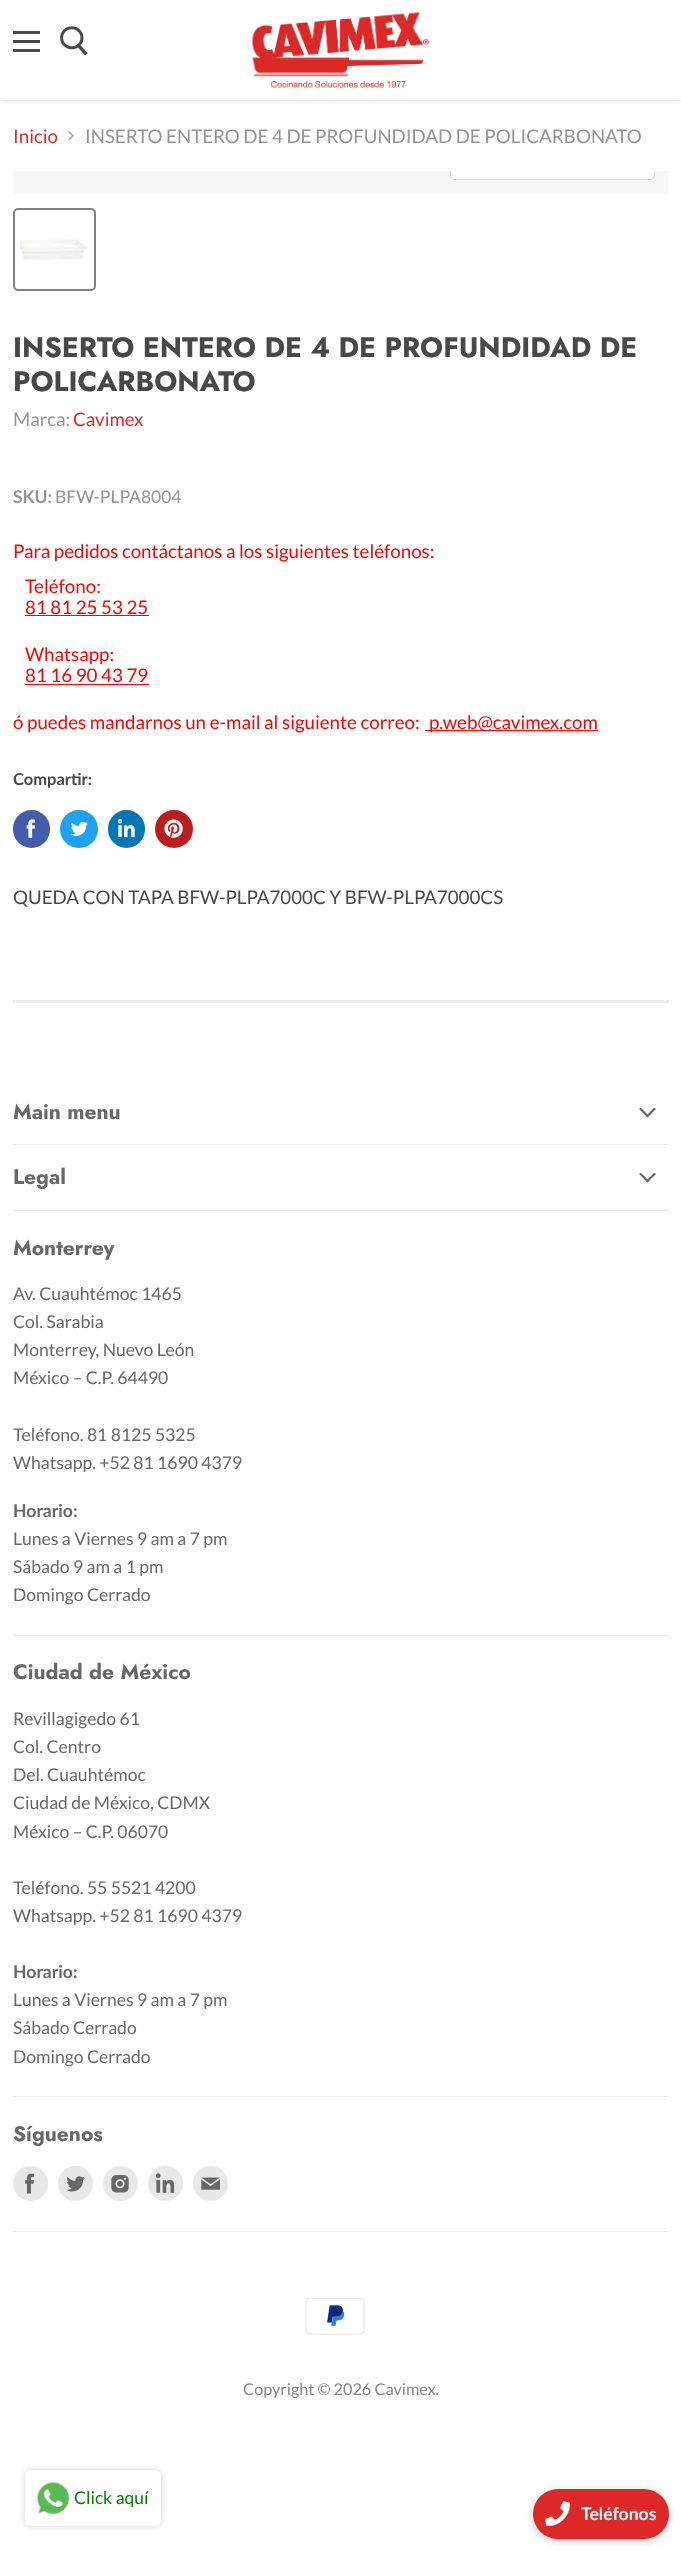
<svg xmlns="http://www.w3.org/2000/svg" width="681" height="2551">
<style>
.a{font:18.75px Lato;fill:#dc2928}
.b{font:18.75px Lato;fill:#949494}
.c{font:bold 28.1px Jost;fill:#484848}
.d{font:bold 17.5px Lato;fill:#949494}
.e{font:17.5px Lato;fill:#949494}
.f{font:18.75px Lato;fill:#f00}
.g{font:bold 16.5px Lato;fill:#484848}
.h{font:18.75px Lato;fill:#484848}
.i{font:bold 21px Jost;fill:#686868}
.j{font:17.6px Lato;fill:#686868}
.k{font:bold 17.6px Lato;fill:#686868}
.l{font:16.25px Lato;fill:#868686}
.m{font:17.5px Lato;fill:#008000}
.n{font:bold 17.6px Lato;fill:#fff}
</style>
<defs>
<clipPath id="clip1"><path d="M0 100h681v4H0z"/></clipPath>
<clipPath id="clip2"><path d="M13 171h656v23H13z"/></clipPath>
</defs>
<rect width="100%" height="100%" fill="#fff"/>
<g clip-path="url(#clip1)">
<path fill="#80808040" filter="blur(2.5px)" d="M0 1h681v100H0z"/>
</g>
<path fill="#484848" d="M13 31h27v3H13z"/>
<path fill="#484848" d="M13 40h27v3H13z"/>
<path fill="#484848" d="M13 49h27v3H13z"/>
<image href="1.png" x="60" y="26" width="28" height="30"/>
<image href="2.png" x="252" y="12" width="177" height="76"/>
<image href="3.png" x="68" y="131" width="6" height="10"/>
<path fill="#f8f8f8" d="M13 171h656v23H13z"/>
<rect fill="none" stroke="#818181" stroke-width="2" x="14" y="209" width="81" height="81" rx="4"/>
<image href="4.png" x="20" y="239" width="68" height="22"/>
<path fill="#f00" d="M25 615h124v1H25z"/>
<path fill="#f00" d="M25 684h124v1H25z"/>
<path fill="#f00" d="M425 730h173v1H425z"/>
<rect fill="#425dab" x="13" y="810" width="37" height="38" rx="18.5"/>
<image href="5.png" x="26" y="819" width="9" height="19"/>
<circle fill="#1da1f2" cx="79" cy="829" r="19"/>
<image href="6.png" x="70" y="821" width="18" height="15"/>
<rect fill="#0077b5" x="108" y="810" width="37" height="38" rx="18.5"/>
<image href="7.png" x="117" y="819" width="18" height="19"/>
<circle fill="#bd1c1c" cx="174" cy="829" r="19"/>
<image href="8.png" x="164" y="819" width="19" height="19"/>
<path fill="#80808029" d="M13 1000h656v3H13z"/>
<path fill="#e8e8e8" d="M13 1144h656v1H13z"/>
<image href="9.png" x="639" y="1108" width="17" height="10"/>
<path fill="#e8e8e8" d="M13 1210h656v1H13z"/>
<image href="9.png" x="639" y="1173" width="17" height="10"/>
<path fill="#e8e8e8" d="M13 1635h656v1H13z"/>
<path fill="#e8e8e8" d="M13 2096h656v1H13z"/>
<path fill="#e8e8e8" d="M13 2231h656v1H13z"/>
<circle fill="#e8e8e8" cx="30.5" cy="2183.5" r="17.5"/>
<image href="10.png" x="25" y="2173" width="9" height="21"/>
<circle fill="#e8e8e8" cx="75.5" cy="2183.5" r="17.5"/>
<image href="11.png" x="66" y="2176" width="19" height="16"/>
<circle fill="#e8e8e8" cx="120.5" cy="2183.5" r="17.5"/>
<image href="12.png" x="111" y="2175" width="18" height="18"/>
<circle fill="#e8e8e8" cx="165.5" cy="2183.5" r="17.5"/>
<image href="13.png" x="155" y="2173" width="20" height="20"/>
<circle fill="#e8e8e8" cx="210.5" cy="2183.5" r="17.5"/>
<image href="14.png" x="201" y="2177" width="19" height="13"/>
<image href="15.png" x="305" y="2298" width="60" height="37"/>
<rect fill="#d3d3d3" filter="blur(3px)" x="25" y="2470" width="136" height="56" rx="6"/>
<rect fill="#fff" x="25" y="2470" width="136" height="56" rx="6"/>
<image href="16.png" x="37" y="2482" width="32" height="32"/>
<rect fill="#00000033" filter="blur(4px)" x="533" y="2491" width="136" height="50" rx="25"/>
<rect fill="#dc2928" x="533" y="2489" width="136" height="50" rx="25"/>
<image href="17.png" x="545" y="2501" width="25" height="25"/>
<text class="a" x="13" y="143">Inicio</text>
<text class="b" x="85" y="143">INSERTO ENTERO DE 4 DE PROFUNDIDAD DE POLICARBONATO</text>
<g clip-path="url(#clip2)">
<rect fill="none" stroke="#d3d3d3" x="450.5" y="143.5" width="204" height="36" rx="4.5"/>
</g>
<path fill="#ffffffe6" d="M451 171h203v4c0 2-2 4-4 4h-195c-2 0-4-2-4-4z"/>
<text class="c" x="13" y="357">INSERTO ENTERO DE 4 DE PROFUNDIDAD DE</text>
<text class="c" x="13" y="391">POLICARBONATO</text>
<text class="b" x="13" y="426">Marca:</text>
<text class="a" x="73" y="426">Cavimex</text>
<text class="d" x="13" y="503">SKU:</text>
<text class="e" x="55" y="503">BFW-PLPA8004</text>
<text class="f" x="13" y="558">Para pedidos contáctanos a los siguientes teléfonos:</text>
<text class="f" x="25" y="593">Teléfono:</text>
<text class="f" x="25" y="614">81 81 25 53 25</text>
<text class="f" x="25" y="661">Whatsapp:</text>
<text class="f" x="25" y="682">81 16 90 43 79</text>
<text class="f" x="13" y="729">ó puedes mandarnos un e-mail al siguiente correo:</text>
<text class="f" x="429" y="729">p.web@cavimex.com</text>
<text class="g" x="13" y="785">Compartir:</text>
<text class="h" x="13" y="904">QUEDA CON TAPA BFW-PLPA7000C Y BFW-PLPA7000CS</text>
<text class="i" x="13" y="1119">Main menu</text>
<text class="i" x="13" y="1184">Legal</text>
<text class="i" x="13" y="1255">Monterrey</text>
<text class="j" x="13" y="1300">Av. Cuauhtémoc 1465</text>
<text class="j" x="13" y="1328">Col. Sarabia</text>
<text class="j" x="13" y="1356">Monterrey, Nuevo León</text>
<text class="j" x="13" y="1384">México – C.P. 64490</text>
<text class="j" x="13" y="1441">Teléfono. 81 8125 5325</text>
<text class="j" x="13" y="1469">Whatsapp. +52 81 1690 4379</text>
<text class="k" x="13" y="1517">Horario:</text>
<text class="j" x="13" y="1545">Lunes a Viernes 9 am a 7 pm</text>
<text class="j" x="13" y="1573">Sábado 9 am a 1 pm</text>
<text class="j" x="13" y="1601">Domingo Cerrado</text>
<text class="i" x="13" y="1679">Ciudad de México</text>
<text class="j" x="13" y="1725">Revillagigedo 61</text>
<text class="j" x="13" y="1753">Col. Centro</text>
<text class="j" x="13" y="1781">Del. Cuauhtémoc</text>
<text class="j" x="13" y="1809">Ciudad de México, CDMX</text>
<text class="j" x="13" y="1838">México – C.P. 06070</text>
<text class="j" x="13" y="1894">Teléfono. 55 5521 4200</text>
<text class="j" x="13" y="1922">Whatsapp. +52 81 1690 4379</text>
<text class="k" x="13" y="1978">Horario:</text>
<text class="j" x="13" y="2006">Lunes a Viernes 9 am a 7 pm</text>
<text class="j" x="13" y="2034">Sábado Cerrado</text>
<text class="j" x="13" y="2063">Domingo Cerrado</text>
<text class="i" x="13" y="2141">Síguenos</text>
<text class="l" x="243" y="2395">Copyright © 2026 Cavimex.</text>
<text class="m" x="74" y="2504">Click aquí</text>
<text class="n" x="581" y="2520">Teléfonos</text>
</svg>
